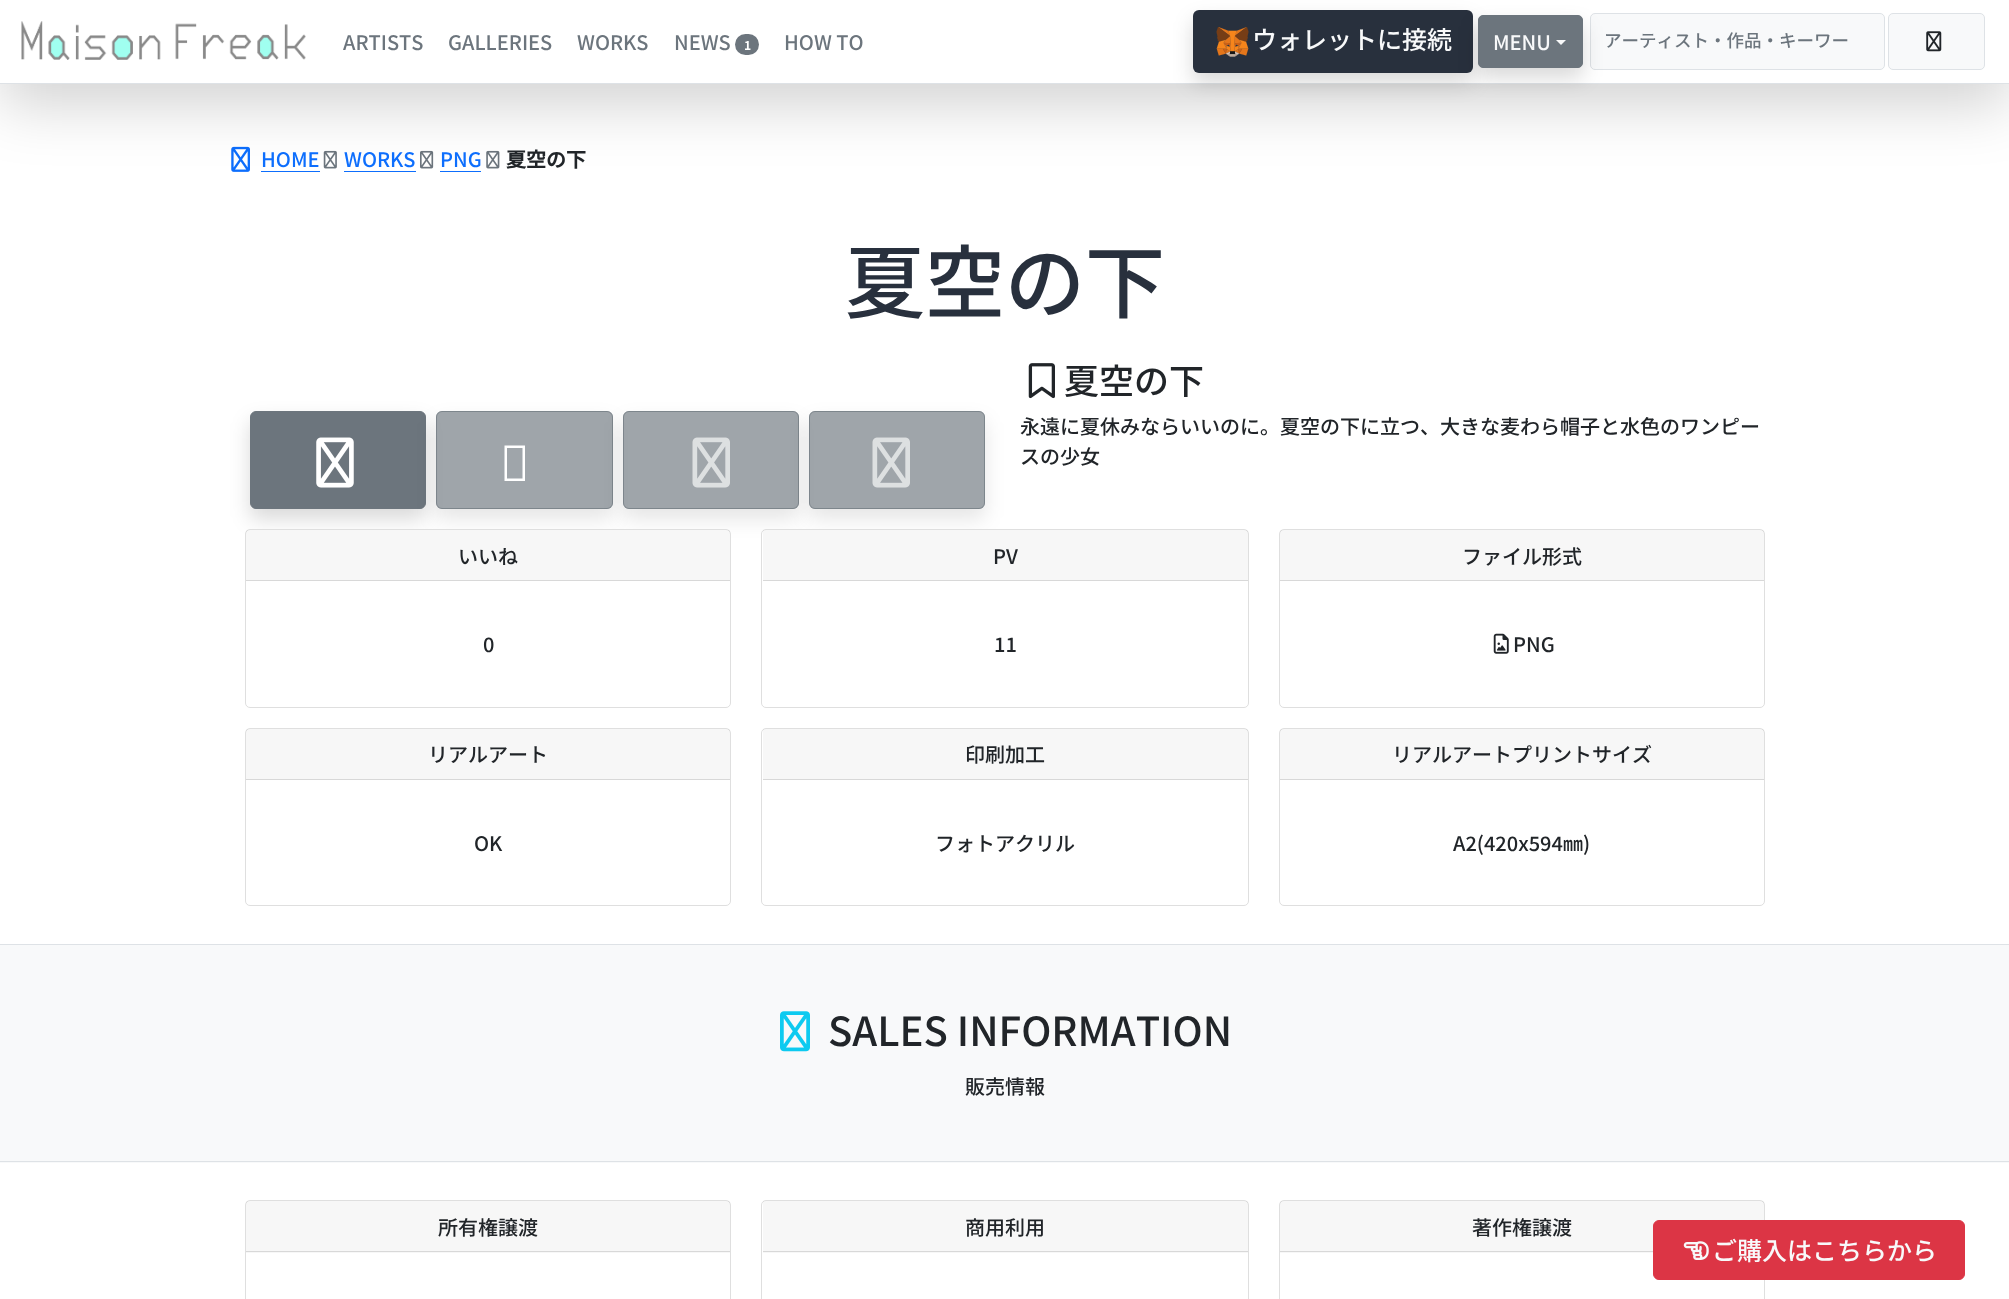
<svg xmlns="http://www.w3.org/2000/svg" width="2009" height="1299">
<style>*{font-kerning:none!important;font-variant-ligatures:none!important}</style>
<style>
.a{font:100 20px Noto Sans JP;fill:#6c757d}
.b{font:bold 12px Noto Sans JP;fill:#fff}
.c{font:100 25px Noto Sans JP;fill:#f8f9fa}
.d{font:100 20px Noto Sans JP;fill:#f8f9fa}
.e{font:100 17.5px Noto Sans JP;fill:#6c757d}
.f{font:100 20px Noto Sans JP;fill:#0d6efd}
.g{font:bold 20px Noto Sans JP;fill:#212529}
.h{font:100 80px Noto Sans JP;fill:#28303d}
.i{font:100 35px Noto Sans JP;fill:#212529}
.j{font:100 20px Noto Sans JP;fill:#212529}
.k{font:100 40px Noto Sans JP;fill:#212529}
</style>
<defs>
<clipPath id="clip1"><path d="M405 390h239v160h-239zm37 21h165c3.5 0 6 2.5 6 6v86c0 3.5-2.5 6-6 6h-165c-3.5 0-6-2.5-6-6v-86c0-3.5 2.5-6 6-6z" clip-rule="evenodd"/></clipPath>
<clipPath id="clip2"><path d="M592 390h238v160h-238zm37 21h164c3.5 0 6 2.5 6 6v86c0 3.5-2.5 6-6 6h-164c-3.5 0-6-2.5-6-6v-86c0-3.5 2.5-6 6-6z" clip-rule="evenodd"/></clipPath>
<clipPath id="clip3"><path d="M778 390h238v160h-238zm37 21h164c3.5 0 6 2.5 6 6v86c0 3.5-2.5 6-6 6h-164c-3.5 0-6-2.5-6-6v-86c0-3.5 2.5-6 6-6z" clip-rule="evenodd"/></clipPath>
</defs>
<rect width="100%" height="100%" fill="#fff"/>
<image href="4.png" x="231" y="146" width="19" height="26"/>
<path fill="#0d6efd" d="M261 171h59v1H261z"/>
<image href="5.png" x="323" y="150" width="14" height="19"/>
<path fill="#0d6efd" d="M344 171h72v1H344z"/>
<image href="6.png" x="420" y="150" width="14" height="19"/>
<path fill="#0d6efd" d="M440 171h41v1H440z"/>
<image href="7.png" x="486" y="150" width="14" height="19"/>
<path fill="#0000002e" filter="blur(30px)" d="M0 20h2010v84H0z"/>
<path fill="#fff" d="M0 0h2009v83H0z"/>
<path fill="#dee2e6" d="M0 83h2009v1H0z"/>
<image href="1.png" x="21" y="21" width="285" height="39"/>
<rect fill="#6c757d" x="735" y="34" width="24" height="21" rx="10.5"/>
<rect fill="#00000026" filter="blur(10px)" x="1193" y="20" width="280" height="63" rx="6"/>
<rect fill="#28303d" x="1193" y="10" width="280" height="63" rx="6"/>
<image href="2.png" x="1216" y="27" width="33" height="30"/>
<rect fill="#f8f9fa" stroke="#dee2e6" x="1590.5" y="13.5" width="294" height="56" rx="4.5"/>
<rect fill="#00000026" filter="blur(10px)" x="1478" y="25" width="105" height="53" rx="5"/>
<rect fill="#6c757d" stroke="#6c757d" x="1478.5" y="15.5" width="104" height="52" rx="4.5"/>
<path fill="#f8f9fa" d="M1556 40h10l-5 5z"/>
<rect fill="#f8f9fa" stroke="#dee2e6" x="1888.5" y="13.5" width="96" height="56" rx="4.5"/>
<image href="3.png" x="1926" y="31" width="16" height="21"/>
<rect fill="#00000026" filter="blur(10px)" x="250" y="421" width="176" height="98" rx="6"/>
<rect fill="#6c757d" stroke="#6c757d" x="250.5" y="411.5" width="175" height="97" rx="5.5"/>
<image href="8.png" x="316" y="437" width="38" height="51"/>
<g clip-path="url(#clip1)">
<rect fill="#0000001a" filter="blur(10px)" x="436" y="421" width="177" height="98" rx="6"/>
</g>
<rect fill="#6c757da6" x="436" y="411" width="177" height="98" rx="6"/>
<rect fill="none" stroke="#6c757da6" x="436.5" y="411.5" width="176" height="97" rx="5.5"/>
<path fill="#fff" d="M504.5 481v-35.5h20.5v35.5zm2.5-2.5h15.5v-30.5h-15.5z"/>
<g clip-path="url(#clip2)">
<rect fill="#0000001a" filter="blur(10px)" x="623" y="421" width="176" height="98" rx="6"/>
</g>
<rect fill="#6c757da6" x="623" y="411" width="176" height="98" rx="6"/>
<rect fill="none" stroke="#6c757da6" x="623.5" y="411.5" width="175" height="97" rx="5.5"/>
<image href="9.png" x="692" y="437" width="38" height="51"/>
<g clip-path="url(#clip3)">
<rect fill="#0000001a" filter="blur(10px)" x="809" y="421" width="176" height="98" rx="6"/>
</g>
<rect fill="#6c757da6" x="809" y="411" width="176" height="98" rx="6"/>
<rect fill="none" stroke="#6c757da6" x="809.5" y="411.5" width="175" height="97" rx="5.5"/>
<image href="9.png" x="872" y="437" width="38" height="51"/>
<image href="10.png" x="1028" y="363" width="27" height="36"/>
<rect fill="#fff" stroke="#dfdfdf" x="245.5" y="529.5" width="485" height="178" rx="4.5"/>
<path fill="#00000008" d="M246 530h484v50H246z"/>
<path fill="#d8d8d8" d="M246 580h484v1H246z"/>
<rect fill="#fff" stroke="#dfdfdf" x="761.5" y="529.5" width="487" height="178" rx="4.5"/>
<path fill="#00000008" d="M763 530h485v50H763z"/>
<path fill="#d8d8d8" d="M763 580h485v1H763z"/>
<rect fill="none" stroke="#dfdfdf" x="1279.5" y="529.5" width="485" height="178" rx="4.5"/>
<path fill="#00000008" d="M1280 530h484v50H1280z"/>
<path fill="#d8d8d8" d="M1280 580h484v1H1280z"/>
<image href="11.png" x="1493" y="633" width="16" height="21"/>
<rect fill="none" stroke="#dfdfdf" x="245.5" y="728.5" width="485" height="177" rx="4.5"/>
<path fill="#00000008" d="M246 729h484v50H246z"/>
<path fill="#d8d8d8" d="M246 779h484v1H246z"/>
<rect fill="none" stroke="#dfdfdf" x="761.5" y="728.5" width="487" height="177" rx="4.5"/>
<path fill="#00000008" d="M763 729h485v50H763z"/>
<path fill="#d8d8d8" d="M763 779h485v1H763z"/>
<rect fill="none" stroke="#dfdfdf" x="1279.5" y="728.5" width="485" height="177" rx="4.5"/>
<path fill="#00000008" d="M1280 729h484v50H1280z"/>
<path fill="#d8d8d8" d="M1280 779h484v1H1280z"/>
<path fill="#f8f9fa" d="M0 945h2009v218H0z"/>
<path fill="#dee2e6" d="M0 944h2009v1H0z"/>
<path fill="#dee2e6" d="M0 1161h2009v1H0z"/>
<image href="12.png" x="780" y="1011" width="30" height="41"/>
<rect fill="none" stroke="#dfdfdf" x="245.5" y="1200.5" width="485" height="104" rx="4.5"/>
<path fill="#00000008" d="M246 1201h484v52H246z"/>
<path fill="#d8d8d8" d="M246 1251h484v1H246z"/>
<rect fill="none" stroke="#dfdfdf" x="761.5" y="1200.5" width="487" height="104" rx="4.5"/>
<path fill="#00000008" d="M763 1201h485v52H763z"/>
<path fill="#d8d8d8" d="M763 1251h485v1H763z"/>
<rect fill="none" stroke="#dfdfdf" x="1279.5" y="1200.5" width="485" height="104" rx="4.5"/>
<path fill="#00000008" d="M1280 1201h484v52H1280z"/>
<path fill="#d8d8d8" d="M1280 1251h373v1H1280z"/>
<rect fill="#dc3545" stroke="#dc3545" x="1653.5" y="1220.5" width="311" height="59" rx="5.5"/>
<image href="13.png" x="1683" y="1241" width="26" height="19"/>
<text class="a" x="343" y="50">ARTISTS</text>
<text class="a" x="448" y="50">GALLERIES</text>
<text class="a" x="577" y="50">WORKS</text>
<text class="a" x="674" y="50">NEWS</text>
<text class="b" x="744" y="50">1</text>
<text class="a" x="784" y="50">HOW TO</text>
<text class="c" x="1252" y="49">ウォレットに接続</text>
<text class="d" x="1493" y="50">MENU</text>
<text class="e" x="1604" y="47">アーティスト・作品・キーワー</text>
<text class="f" x="261" y="167">HOME</text>
<text class="f" x="344" y="167">WORKS</text>
<text class="f" x="440" y="167">PNG</text>
<text class="g" x="506" y="167">夏空の下</text>
<text class="h" x="845" y="312">夏空の下</text>
<text class="i" x="1064" y="394">夏空の下</text>
<text class="j" x="1020" y="434">永遠に夏休みならいいのに。夏空の下に立つ、大きな麦わら帽子と水色のワンピー</text>
<text class="j" x="1020" y="464">スの少女</text>
<text class="j" x="458" y="564">いいね</text>
<text class="j" x="483" y="652">0</text>
<text class="j" x="993" y="564">PV</text>
<text class="j" x="994" y="652">11</text>
<text class="j" x="1462" y="564">ファイル形式</text>
<text class="j" x="1513" y="652">PNG</text>
<text class="j" x="428" y="762">リアルアート</text>
<text class="j" x="474" y="851">OK</text>
<text class="j" x="965" y="762">印刷加工</text>
<text class="j" x="935" y="851">フォトアクリル</text>
<text class="j" x="1392" y="762">リアルアートプリントサイズ</text>
<text class="j" x="1453" y="851">A2(420x594㎜)</text>
<text class="k" x="828" y="1046">SALES INFORMATION</text>
<text class="j" x="965" y="1094">販売情報</text>
<text class="j" x="438" y="1235">所有権譲渡</text>
<text class="j" x="965" y="1235">商用利用</text>
<text class="j" x="1472" y="1235">著作権譲渡</text>
<text class="c" x="1712" y="1260">ご購入はこちらから</text>
</svg>
